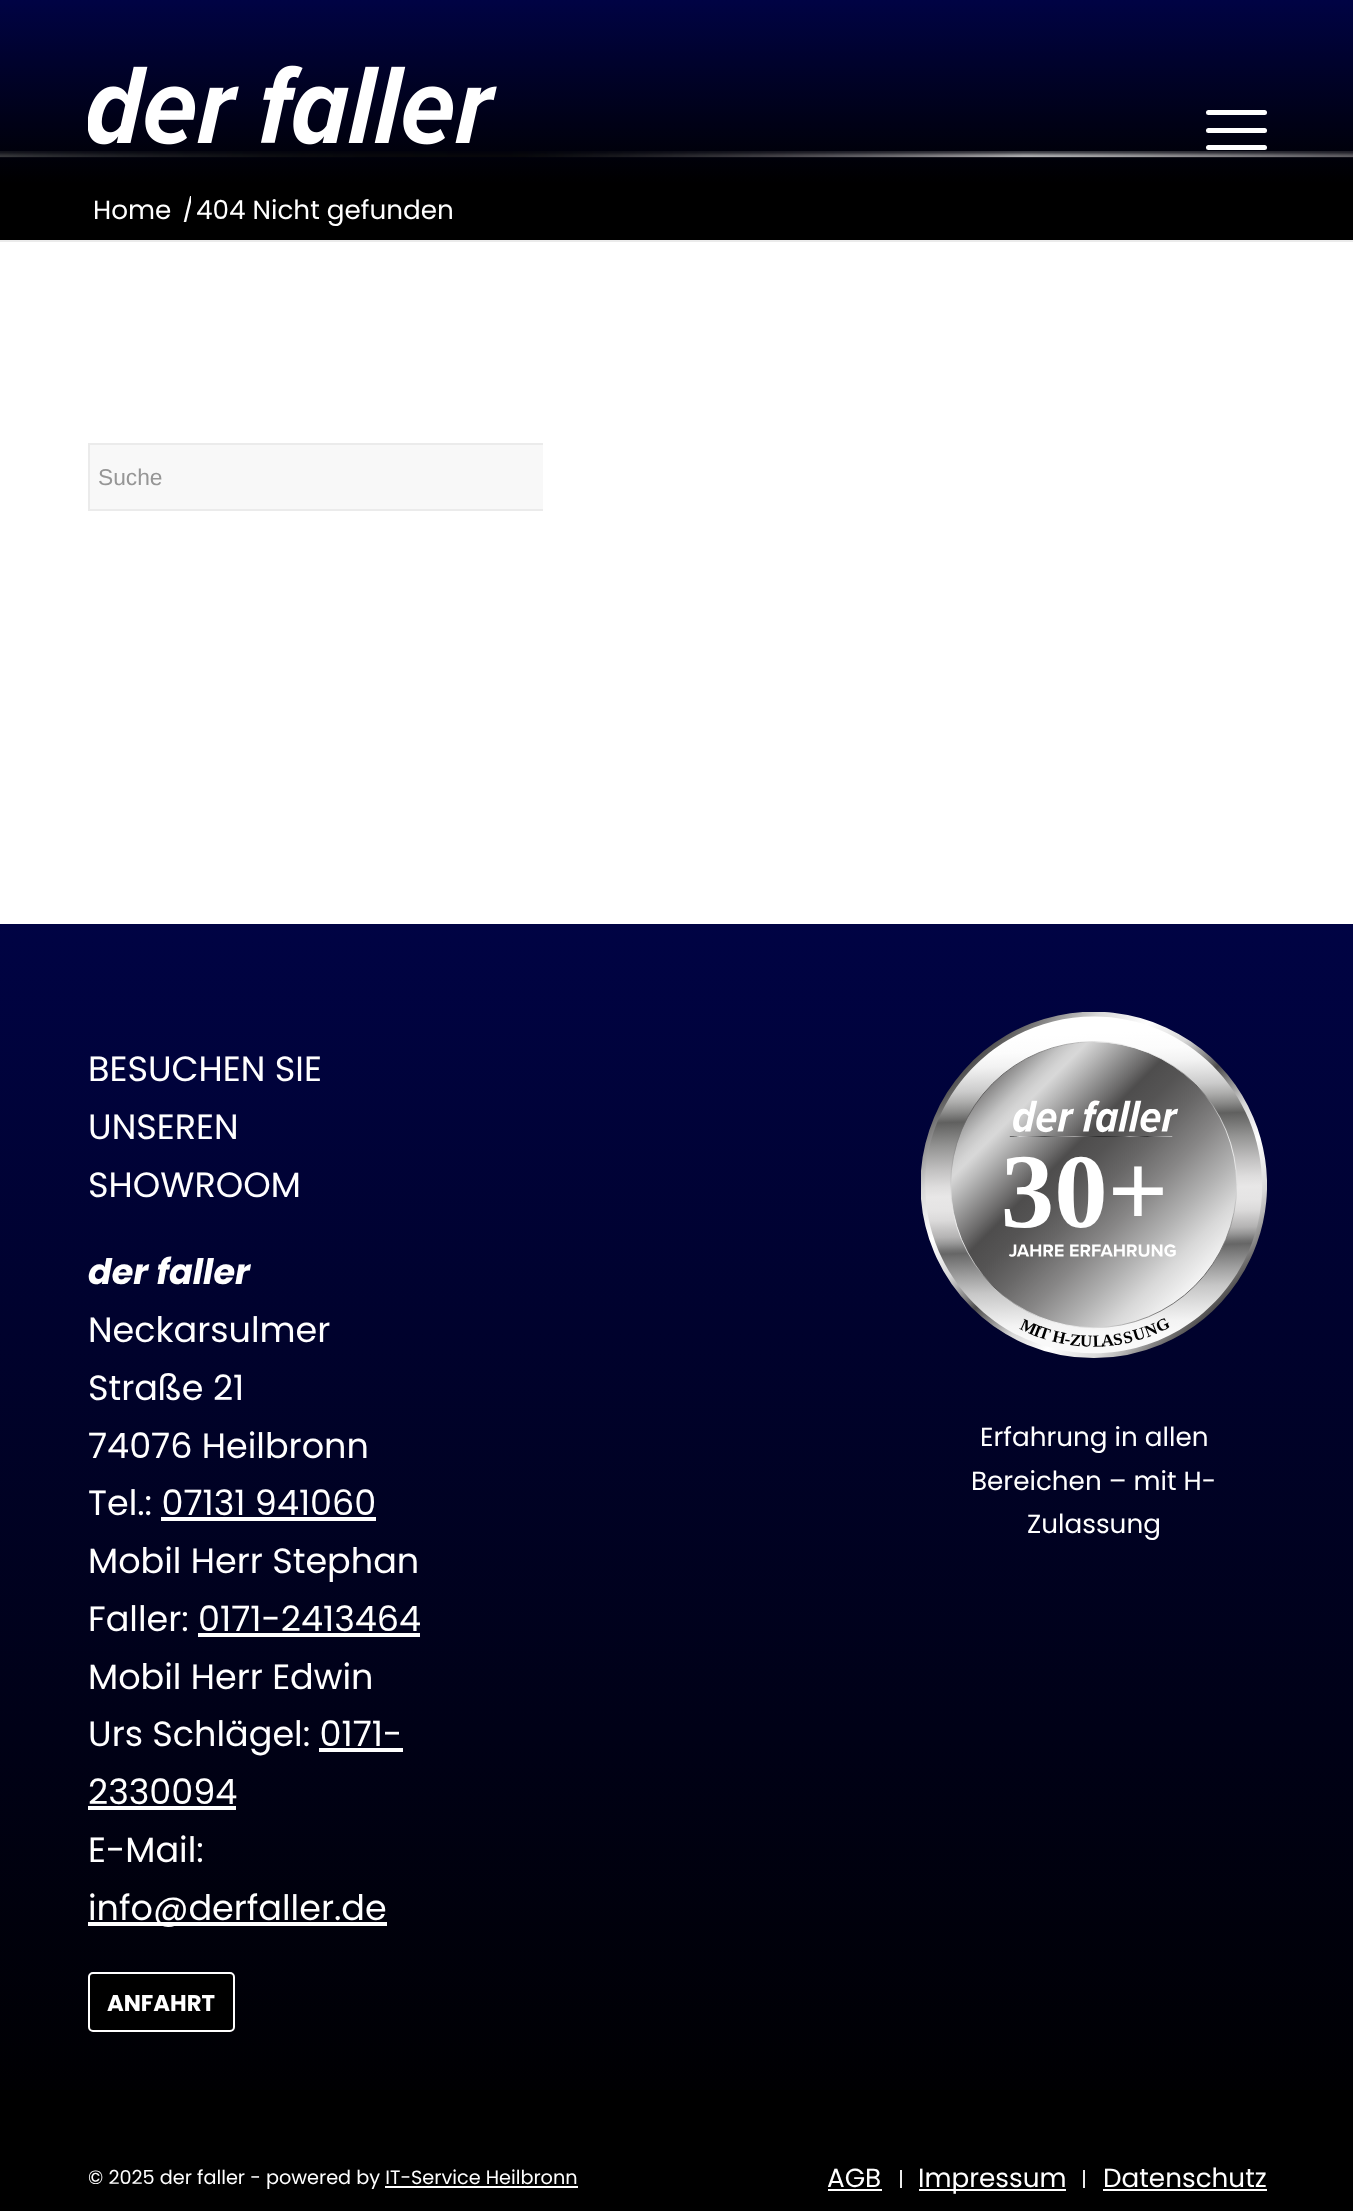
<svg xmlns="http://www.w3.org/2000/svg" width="1353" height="2211">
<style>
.a{font:26.25px Poppins;fill:#fff}
.b{font:22.75px Liberation Sans;fill:#969696}
.c{font:35px Poppins;fill:#fff}
.d{font:italic bold 35px Poppins;fill:#fff}
.e{font:bold 22.75px Poppins;fill:#fff}
.f{font:19.25px Poppins;fill:#fff}
</style>
<defs>
<linearGradient id="g1" gradientUnits="userSpaceOnUse" x1="677" y1="924" x2="677" y2="2135"><stop offset="0" stop-color="#000344"/><stop offset="1" stop-color="#000"/></linearGradient>
<clipPath id="clip1"><path d="M177 196h14v26H177z"/></clipPath>
</defs>
<rect width="100%" height="100%" fill="#000"/>
<path fill="#fff" d="M0 242h1353v682H0z"/>
<image href="1.png" x="0" y="0" width="1353" height="184"/>
<image href="2.png" x="88" y="65" width="409" height="80"/>
<rect fill="#fff" x="1206" y="128" width="61" height="5" rx="2.5"/>
<rect fill="#fff" x="1206" y="110" width="61" height="5" rx="2.5"/>
<rect fill="#fff" x="1206" y="145" width="61" height="5" rx="2.5"/>
<path fill="#ebebeb" d="M0 240h1353v2H0z"/>
<path fill="#f8f8f8" d="M90 445h453v64H90z"/>
<path fill="none" stroke="#ebebeb" stroke-width="2" d="M89 444h523v66H89z"/>
<path fill="#fff" d="M543 443h70v68H543z"/>
<path fill="url(#g1)" d="M0 924h1353v1166H0z"/>
<path fill="#fff" d="M161 1517h215v4H161z"/>
<path fill="#fff" d="M198 1633h222v4H198z"/>
<path fill="#fff" d="M319 1748h84v4H319z"/>
<path fill="#fff" d="M88 1806h148v4H88z"/>
<path fill="#fff" d="M88 1922h299v4H88z"/>
<rect fill="#000" stroke="#fff" stroke-width="2" x="89" y="1973" width="145" height="58" rx="4"/>
<image href="3.png" x="921" y="1012" width="346" height="346"/>
<path fill="#fff" d="M385 2186h193v2H385z"/>
<path fill="#fff" d="M828 2189h54v2H828z"/>
<path fill="#ebebeb" d="M900 2170h2v18H900z"/>
<path fill="#fff" d="M919 2189h147v2H919z"/>
<path fill="#ebebeb" d="M1083 2170h2v18H1083z"/>
<path fill="#fff" d="M1103 2189h164v2H1103z"/>
<text class="a" x="93" y="219">Home</text>
<g clip-path="url(#clip1)">
<text class="a" x="182" y="219">/</text>
</g>
<text class="a" x="196" y="219">404 Nicht gefunden</text>
<text class="b" x="98" y="485">Suche</text>
<text class="c" x="88" y="1081">BESUCHEN SIE</text>
<text class="c" x="88" y="1139">UNSEREN</text>
<text class="c" x="88" y="1197">SHOWROOM</text>
<text class="d" x="88" y="1284">der faller</text>
<text class="c" x="88" y="1342">Neckarsulmer</text>
<text class="c" x="88" y="1400">Straße 21</text>
<text class="c" x="88" y="1458">74076 Heilbronn</text>
<text class="c" x="88" y="1515">Tel.: 07131 941060</text>
<text class="c" x="88" y="1573">Mobil Herr Stephan</text>
<text class="c" x="88" y="1631">Faller: 0171-2413464</text>
<text class="c" x="88" y="1689">Mobil Herr Edwin</text>
<text class="c" x="88" y="1746">Urs Schlägel: 0171-</text>
<text class="c" x="88" y="1804">2330094</text>
<text class="c" x="88" y="1862">E-Mail:</text>
<text class="c" x="88" y="1920">info@derfaller.de</text>
<text class="e" x="107" y="2011">ANFAHRT</text>
<text class="a" x="980" y="1446">Erfahrung in allen</text>
<text class="a" x="971" y="1490">Bereichen – mit H-</text>
<text class="a" x="1027" y="1533">Zulassung</text>
<text class="f" x="88" y="2184">© 2025 der faller - powered by IT-Service Heilbronn</text>
<text class="a" x="827" y="2187">AGB</text>
<text class="a" x="918" y="2187">Impressum</text>
<text class="a" x="1103" y="2187">Datenschutz</text>
</svg>
